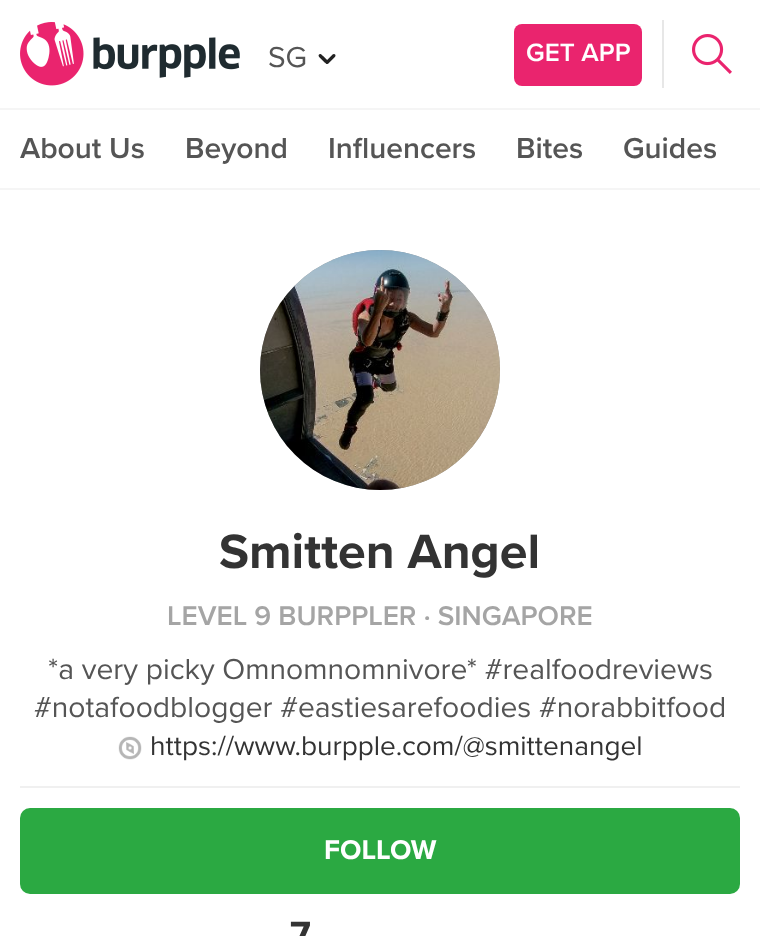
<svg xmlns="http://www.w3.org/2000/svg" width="760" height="936">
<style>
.a{font:30px Proxima Nova;fill:#555}
.b{font:600 26px Proxima Nova;fill:#fff}
.c{font:600 30px Proxima Nova;fill:#555}
.d{font:bold 50px Proxima Nova;fill:#333}
.e{font:600 28px Proxima Nova;fill:#a5a5a5}
.f{font:28px Proxima Nova;fill:#333}
.g{font:bold 28px Proxima Nova;fill:#fff}
.h{font:bold 38px Proxima Nova;fill:#333}
</style>
<rect width="100%" height="100%" fill="#fff"/>
<path fill="#f5f5f5" d="M0 108h760v2H0z"/>
<image href="1.png" x="20" y="22" width="220" height="64"/>
<image href="2.png" x="318" y="54" width="18" height="10"/>
<rect fill="#ea246e" x="514" y="24" width="128" height="62" rx="8"/>
<path fill="#e7e7e7" d="M662 20h2v68H662z"/>
<image href="3.png" x="692" y="34" width="40" height="40"/>
<path fill="#f5f5f5" d="M0 188h760v2H0z"/>
<circle fill="#999" cx="380" cy="370" r="120"/>
<image href="4.png" x="260" y="250" width="240" height="240"/>
<image href="5.png" x="118" y="736" width="24" height="24"/>
<path fill="#f0f0f0" d="M20 786h720v2H20z"/>
<rect fill="#2ba942" x="20" y="808" width="720" height="86" rx="10"/>
<text class="a" x="268" y="67">SG</text>
<text class="b" x="526" y="61">GET APP</text>
<text class="c" x="20" y="158">About Us</text>
<text class="c" x="185" y="158">Beyond</text>
<text class="c" x="328" y="158">Influencers</text>
<text class="c" x="516" y="158">Bites</text>
<text class="c" x="623" y="158">Guides</text>
<text class="d" x="219" y="568">Smitten Angel</text>
<text class="e" x="167" y="625">LEVEL 9 BURPPLER · SINGAPORE</text>
<text class="a" x="48" y="679">*a very picky Omnomnomnivore* #realfoodreviews</text>
<text class="a" x="34" y="717">#notafoodblogger #eastiesarefoodies #norabbitfood</text>
<text class="f" x="150" y="755">https://www.burpple.com/@smittenangel</text>
<text class="g" x="324" y="859">FOLLOW</text>
<text class="h" x="290" y="947">7</text>
</svg>
